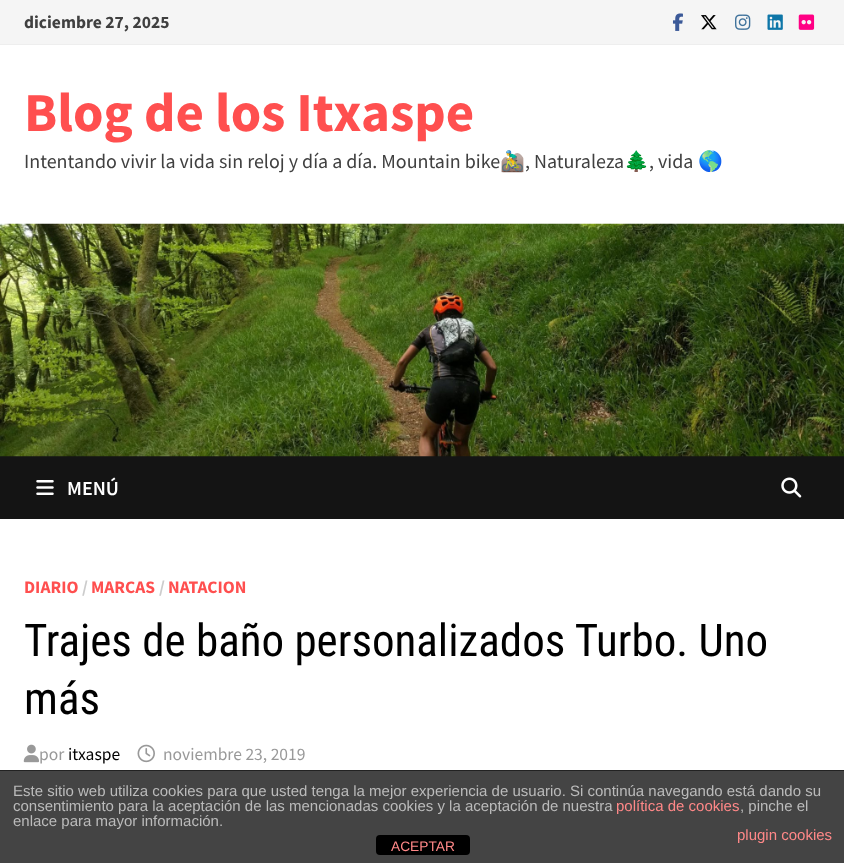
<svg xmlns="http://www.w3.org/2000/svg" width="844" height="863">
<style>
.a{font:bold 17.5px Source Sans Pro;fill:#404040}
.b{font:bold 55px Source Sans Pro;fill:#ff4f4f}
.c{font:20px Source Sans Pro;fill:#404040}
.d{font:20px Noto Color Emoji;fill:#404040}
.e{font:600 20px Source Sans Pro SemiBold;fill:#fff}
.f{font:bold 17.5px Source Sans Pro;fill:#ff4f4f}
.g{font:bold 17.5px Source Sans Pro;fill:#ccc}
.h{font:45px Roboto Condensed;fill:#000}
.i{font:17.5px Source Sans Pro;fill:#999}
.j{font:17.5px Source Sans Pro;fill:#000}
.k{font:15px Liberation Sans;fill:#bbb}
.l{font:15px Liberation Sans;fill:#f88}
.m{font:13.75px Liberation Sans;fill:#f88}
</style>
<rect width="100%" height="100%" fill="#fff"/>
<path fill="#f5f5f5" d="M0 0h844v44H0z"/>
<path fill="#eee" d="M0 44h844v1H0z"/>
<image href="1.png" x="672" y="13" width="11" height="18"/>
<image href="2.png" x="701" y="15" width="16" height="15"/>
<image href="3.png" x="735" y="14" width="16" height="16"/>
<image href="4.png" x="767" y="14" width="16" height="16"/>
<image href="5.png" x="798" y="14" width="17" height="16"/>
<path fill="#141414" d="M0 456h844v63H0z"/>
<image href="6.png" x="0" y="223" width="844" height="234"/>
<image href="7.png" x="36" y="480" width="18" height="15"/>
<image href="8.png" x="781" y="477" width="21" height="21"/>
<image href="9.png" x="23" y="744" width="16" height="19"/>
<image href="10.png" x="137" y="744" width="18" height="19"/>
<path fill="#444" d="M0 771h844v92H0z"/>
<path fill="#222" d="M0 770h844v1H0z"/>
<rect fill="#000" x="376" y="835" width="94" height="20" rx="4"/>
<text class="a" x="24" y="28">diciembre 27, 2025</text>
<text class="b" x="24" y="131">Blog de los Itxaspe</text>
<text class="c" x="24" y="168">Intentando vivir la vida sin reloj y día a día. Mountain bike</text>
<text class="d" x="500" y="168">🚵‍♂️</text>
<text class="c" x="525" y="168">, Naturaleza</text>
<text class="d" x="624" y="168">🌲</text>
<text class="c" x="649" y="168">, vida</text>
<text class="d" x="698" y="168">🌎</text>
<text class="e" x="67" y="495">MENÚ</text>
<text class="f" x="24" y="593">DIARIO</text>
<text class="g" x="82" y="593">/</text>
<text class="f" x="91" y="593">MARCAS</text>
<text class="g" x="159" y="593">/</text>
<text class="f" x="168" y="593">NATACION</text>
<text class="h" x="24" y="656">Trajes de baño personalizados Turbo. Uno</text>
<text class="h" x="24" y="714">más</text>
<text class="i" x="39" y="760">por</text>
<text class="j" x="68" y="760">itxaspe</text>
<text class="i" x="163" y="760">noviembre 23, 2019</text>
<text class="k" x="13" y="796">Este sitio web utiliza cookies para que usted tenga la mejor experiencia de usuario. Si continúa navegando está dando su</text>
<text class="k" x="13" y="811">consentimiento para la aceptación de las mencionadas cookies y la aceptación de nuestra</text>
<text class="l" x="616" y="811">política de cookies</text>
<text class="k" x="740" y="811">, pinche el</text>
<text class="k" x="13" y="826">enlace para mayor información.</text>
<text class="l" x="737" y="840">plugin cookies</text>
<text class="m" x="391" y="851">ACEPTAR</text>
</svg>
